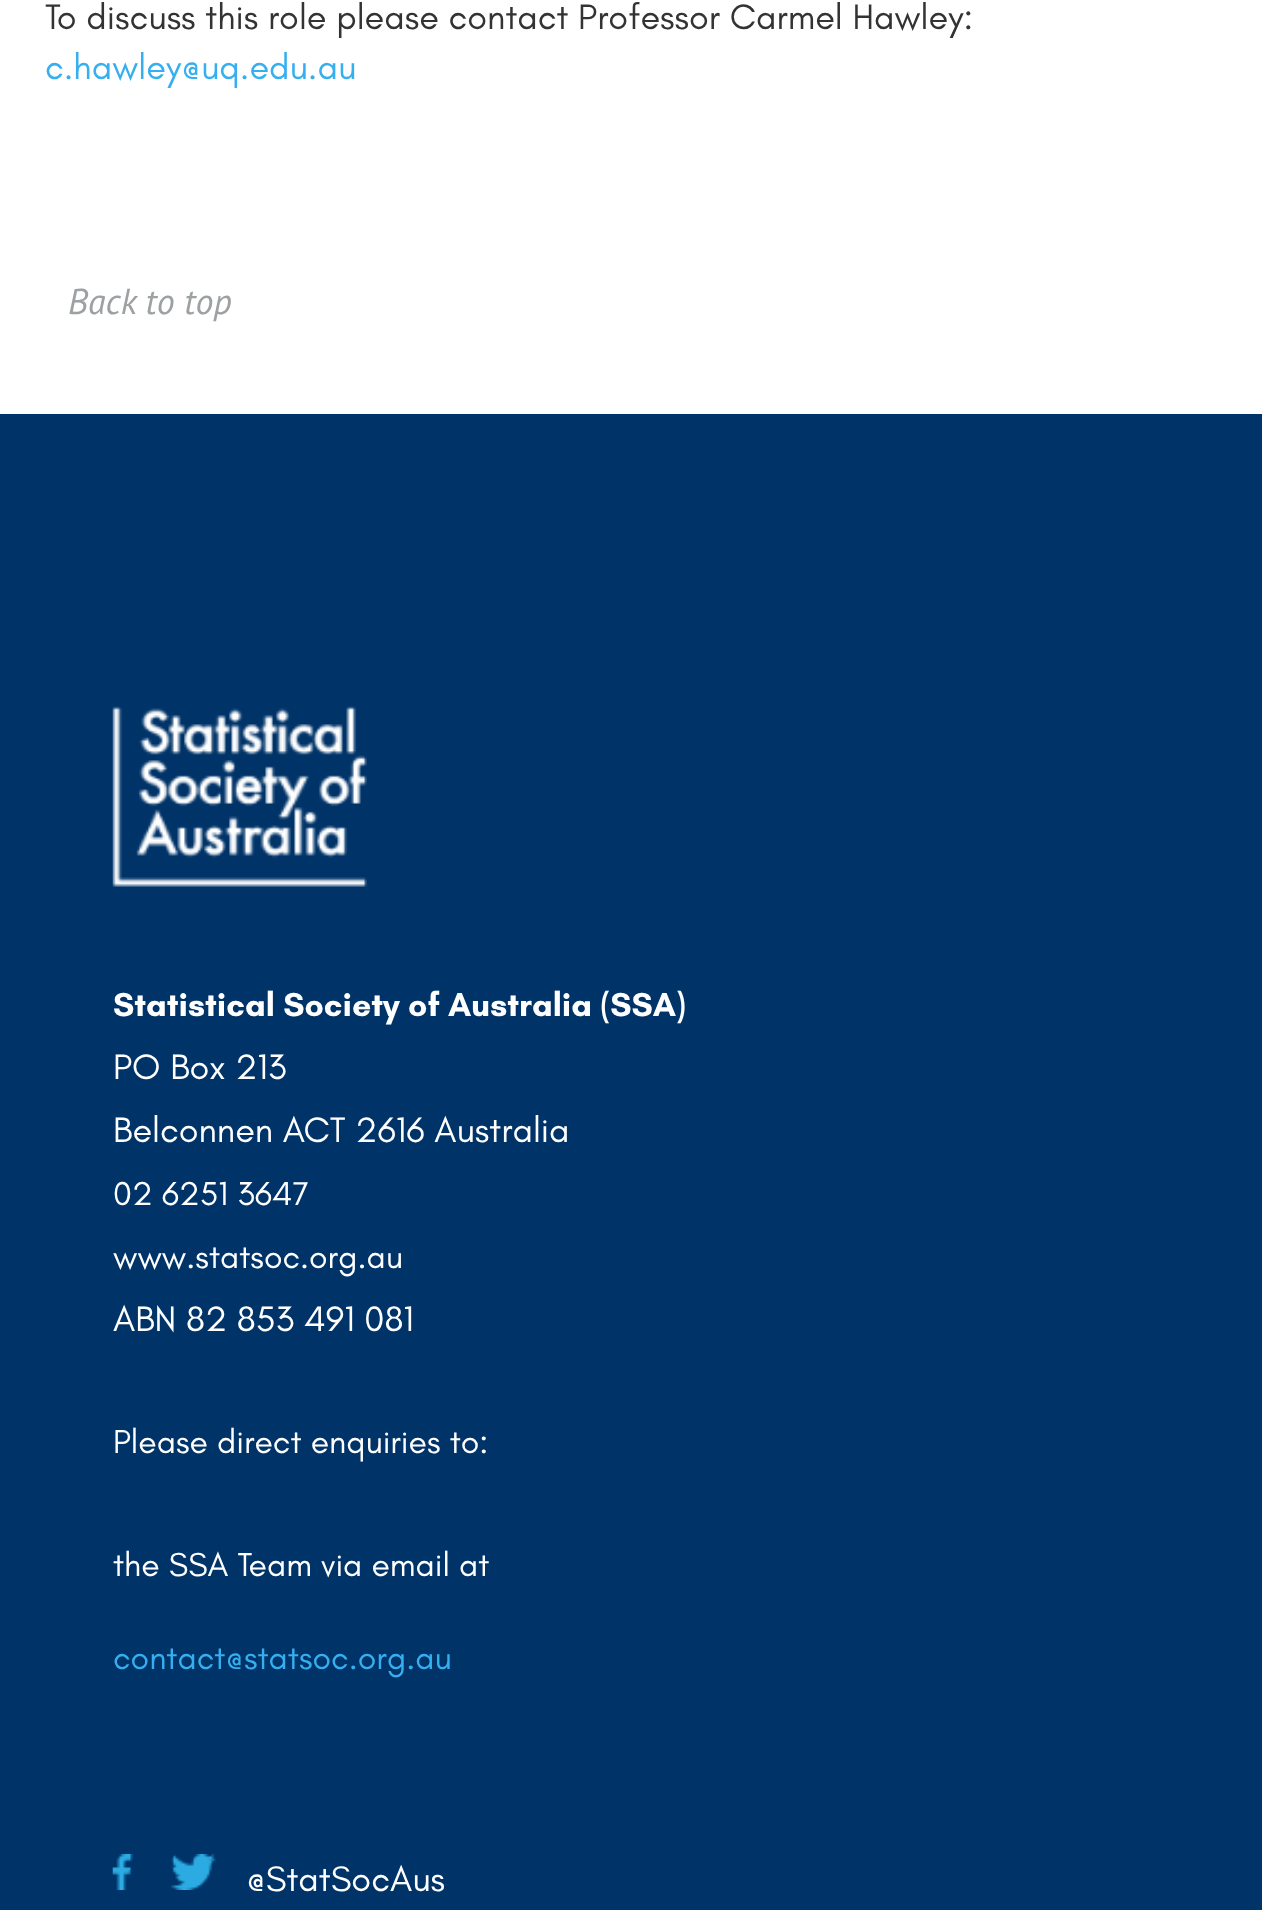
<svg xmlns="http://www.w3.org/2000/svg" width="1262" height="1910">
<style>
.a{font:36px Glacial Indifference;fill:#333}
.b{font:36px Glacial Indifference;fill:#36aff0}
.c{font:italic 36px PT Sans;fill:#9da1a3}
.d{font:bold 33.75px Glacial Indifference;fill:#fff}
.e{font:36px Glacial Indifference;fill:#fff}
.f{font:33.75px Glacial Indifference;fill:#fff}
.g{font:33.75px Glacial Indifference;fill:#36aff0}
</style>
<rect width="100%" height="100%" fill="#fff"/>
<path fill="#003469" d="M0 414h1262v1496H0z"/>
<image href="1.png" x="112" y="706" width="255" height="181"/>
<image href="2.png" x="112" y="1854" width="21" height="36"/>
<image href="3.png" x="171" y="1854" width="45" height="36"/>
<text class="a" x="45" y="29">To discuss this role please contact Professor Carmel Hawley:</text>
<text class="b" x="45" y="79">c.hawley@uq.edu.au</text>
<text class="c" x="68" y="314">Back to top</text>
<text class="d" x="113" y="1016">Statistical Society of Australia (SSA)</text>
<text class="e" x="113" y="1079">PO Box 213</text>
<text class="e" x="113" y="1142">Belconnen ACT 2616 Australia</text>
<text class="f" x="113" y="1205">02 6251 3647</text>
<text class="f" x="113" y="1268">www.statsoc.org.au</text>
<text class="e" x="113" y="1331">ABN 82 853 491 081</text>
<text class="f" x="113" y="1453">Please direct enquiries to:</text>
<text class="f" x="113" y="1576">the SSA Team via email at</text>
<text class="g" x="113" y="1669">contact@statsoc.org.au</text>
<text class="e" x="246" y="1891">@StatSocAus</text>
</svg>
